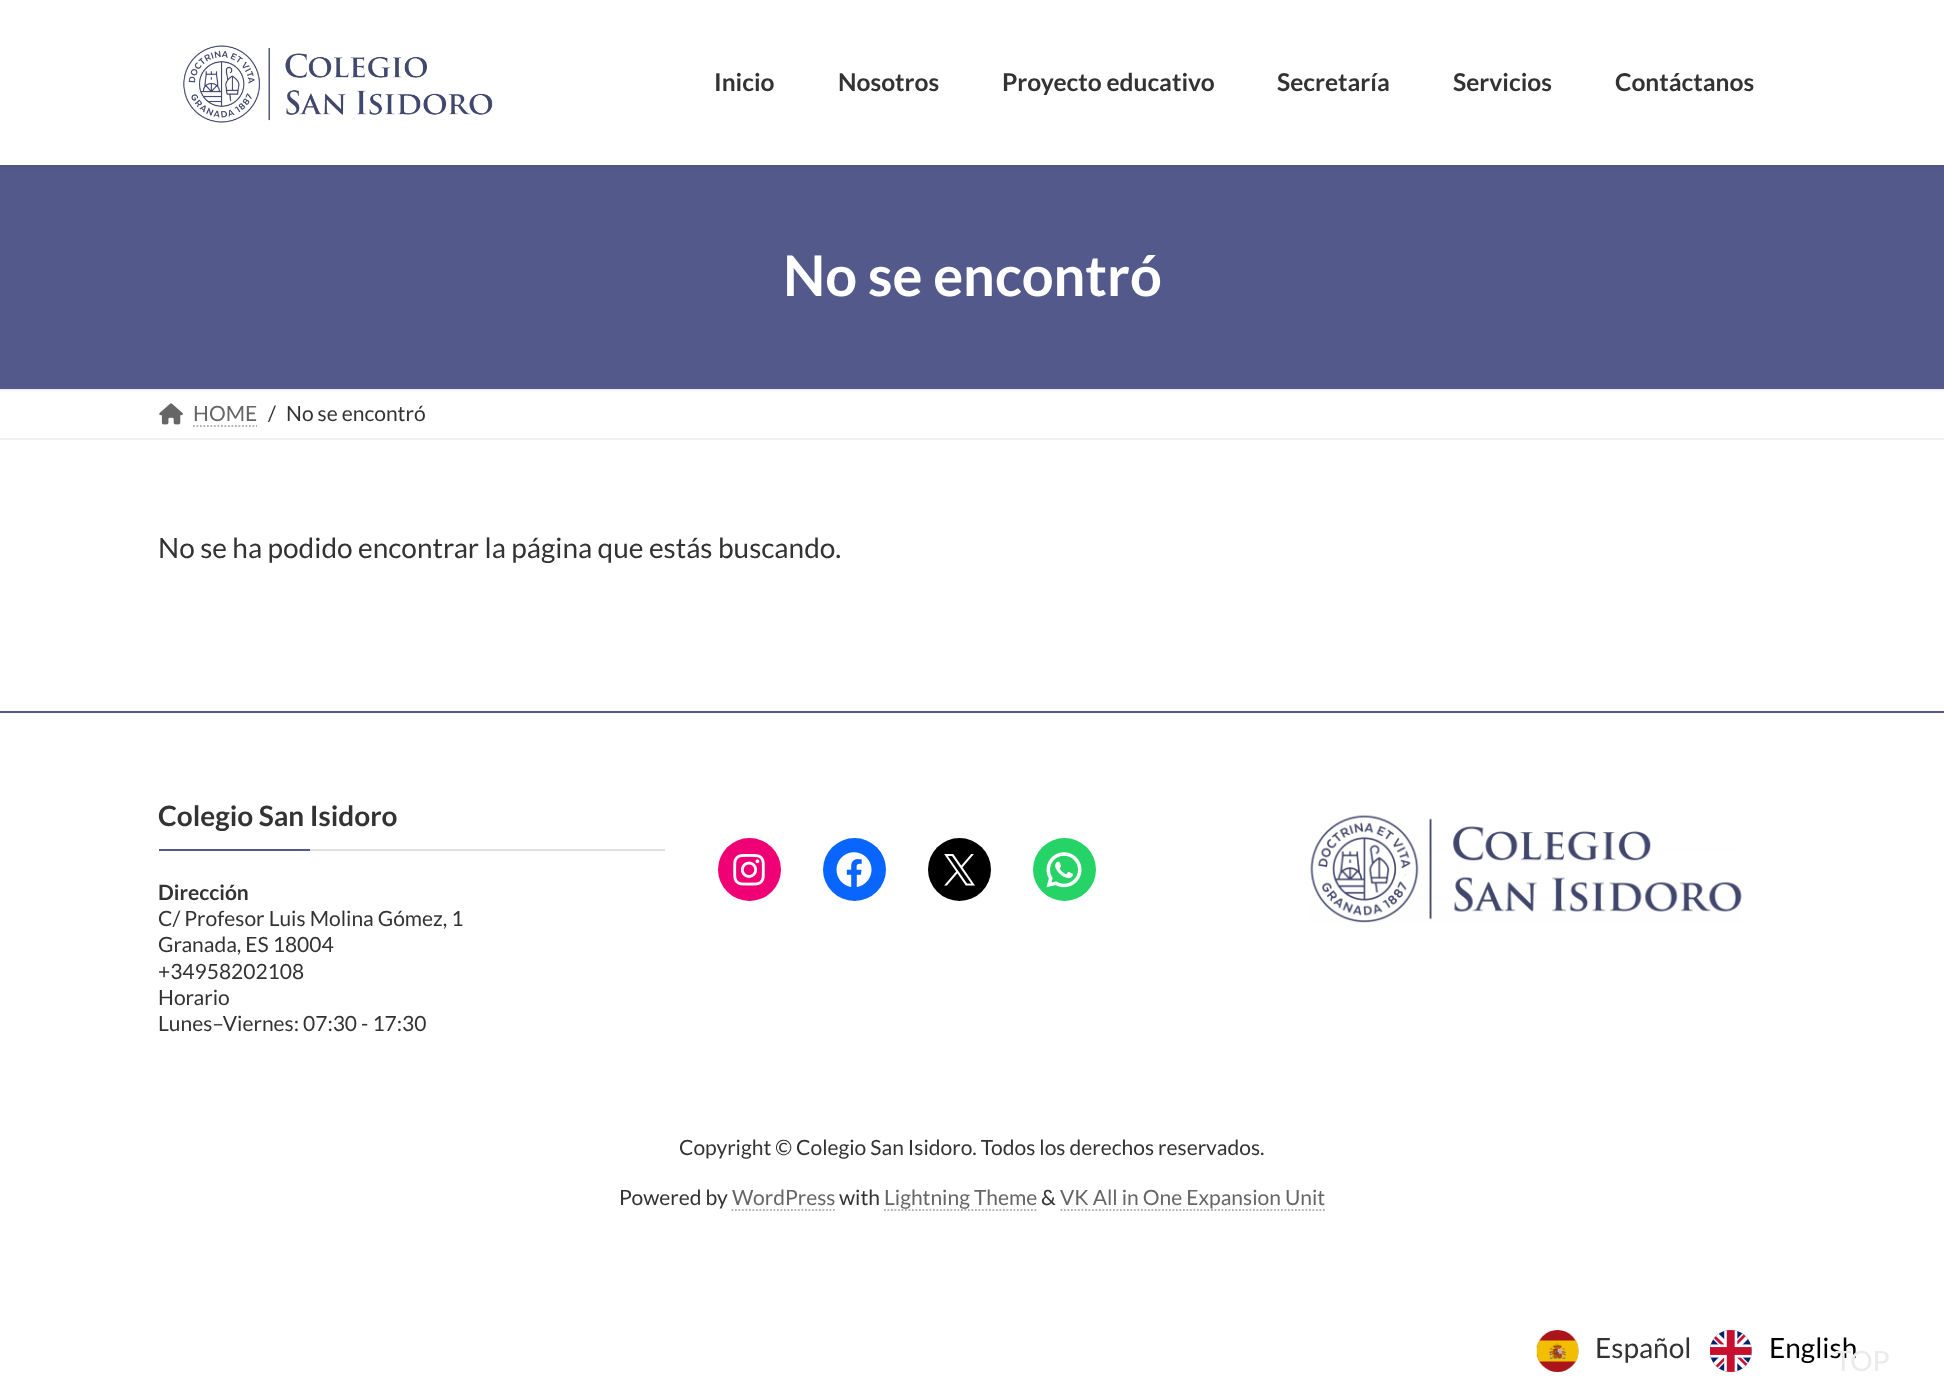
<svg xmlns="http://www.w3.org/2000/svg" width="1944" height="1384">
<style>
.a{font:bold 24.5px Lato;fill:#333}
.b{font:bold 56px Lato;fill:#fff}
.c{font:21px Lato;fill:#666}
.d{font:21px Lato;fill:#333}
.e{font:28px Lato;fill:#333}
.f{font:bold 28px Lato;fill:#333}
.g{font:bold 21px Lato;fill:#333}
.h{font:28px Lato;fill:#000}
.i{font:28px Lato;fill:#ebebeb}
</style>
<rect width="100%" height="100%" fill="#fff"/>
<path fill="#53598b" d="M0 165h1944v224H0z"/>
<path fill="#0000000d" filter="blur(2.5px)" d="M0 2h1944v164H0z"/>
<path fill="#fff" d="M0 0h1944v165H0z"/>
<image href="1.png" x="183" y="45" width="310" height="78"/>
<path fill="#f0f0f0" d="M0 389h1944v2H0z"/>
<path fill="#f0f0f0" d="M0 438h1944v2H0z"/>
<image href="2.png" x="159" y="403" width="24" height="22"/>
<path fill="none" stroke="#b3b3b3" stroke-width="1.8" stroke-dasharray="1.75 1.75" d="M193 426h64"/>
<path fill="#53598b" d="M0 711h1944v2H0z"/>
<path fill="#e0e0e0" d="M310 849h355v2H310z"/>
<path fill="#53598b" d="M159 849h151v2H159z"/>
<circle fill="#f00075" cx="749.5" cy="869.5" r="31.5"/>
<image href="3.png" x="733" y="854" width="32" height="32"/>
<circle fill="#0866ff" cx="854.5" cy="869.5" r="31.5"/>
<image href="4.png" x="836" y="852" width="36" height="35"/>
<circle fill="#000" cx="959.5" cy="869.5" r="31.5"/>
<image href="5.png" x="944" y="854" width="31" height="32"/>
<circle fill="#25d366" cx="1064.5" cy="869.5" r="31.5"/>
<image href="6.png" x="1046" y="852" width="36" height="36"/>
<image href="7.png" x="1310" y="815" width="432" height="108"/>
<path fill="none" stroke="#b3b3b3" stroke-width="1.8" stroke-dasharray="1.75 1.75" d="M731.5 1210h103.5"/>
<path fill="none" stroke="#b3b3b3" stroke-width="1.8" stroke-dasharray="1.75 1.75" d="M884 1210h153.5"/>
<path fill="none" stroke="#b3b3b3" stroke-width="1.8" stroke-dasharray="1.75 1.75" d="M1060.5 1210h265"/>
<image href="8.png" x="1536" y="1330" width="43" height="42"/>
<image href="9.png" x="1710" y="1330" width="42" height="42"/>
<text class="a" x="714" y="91">Inicio</text>
<text class="a" x="838" y="91">Nosotros</text>
<text class="a" x="1002" y="91">Proyecto educativo</text>
<text class="a" x="1277" y="91">Secretaría</text>
<text class="a" x="1453" y="91">Servicios</text>
<text class="a" x="1615" y="91">Contáctanos</text>
<text class="b" x="783" y="296">No se encontró</text>
<text class="c" x="193" y="421">HOME</text>
<text class="d" x="268" y="421">/</text>
<text class="d" x="286" y="421">No se encontró</text>
<text class="e" x="158" y="558">No se ha podido encontrar la página que estás buscando.</text>
<text class="f" x="158" y="826">Colegio San Isidoro</text>
<text class="g" x="158" y="900">Dirección</text>
<text class="d" x="158" y="926">C/ Profesor Luis Molina Gómez, 1</text>
<text class="d" x="158" y="952">Granada, ES 18004</text>
<text class="d" x="158" y="979">+34958202108</text>
<text class="d" x="158" y="1005">Horario</text>
<text class="d" x="158" y="1031">Lunes–Viernes: 07:30 - 17:30</text>
<text class="d" x="679" y="1155">Copyright © Colegio San Isidoro. Todos los derechos reservados.</text>
<text class="d" x="619" y="1205">Powered by</text>
<text class="c" x="732" y="1205">WordPress</text>
<text class="d" x="839" y="1205">with</text>
<text class="c" x="884" y="1205">Lightning Theme</text>
<text class="d" x="1041" y="1205">&amp;</text>
<text class="c" x="1060" y="1205">VK All in One Expansion Unit</text>
<text class="e" x="1595" y="1358">Español</text>
<text class="h" x="1769" y="1358">English</text>
<text class="i" x="1835" y="1371">TOP</text>
</svg>
